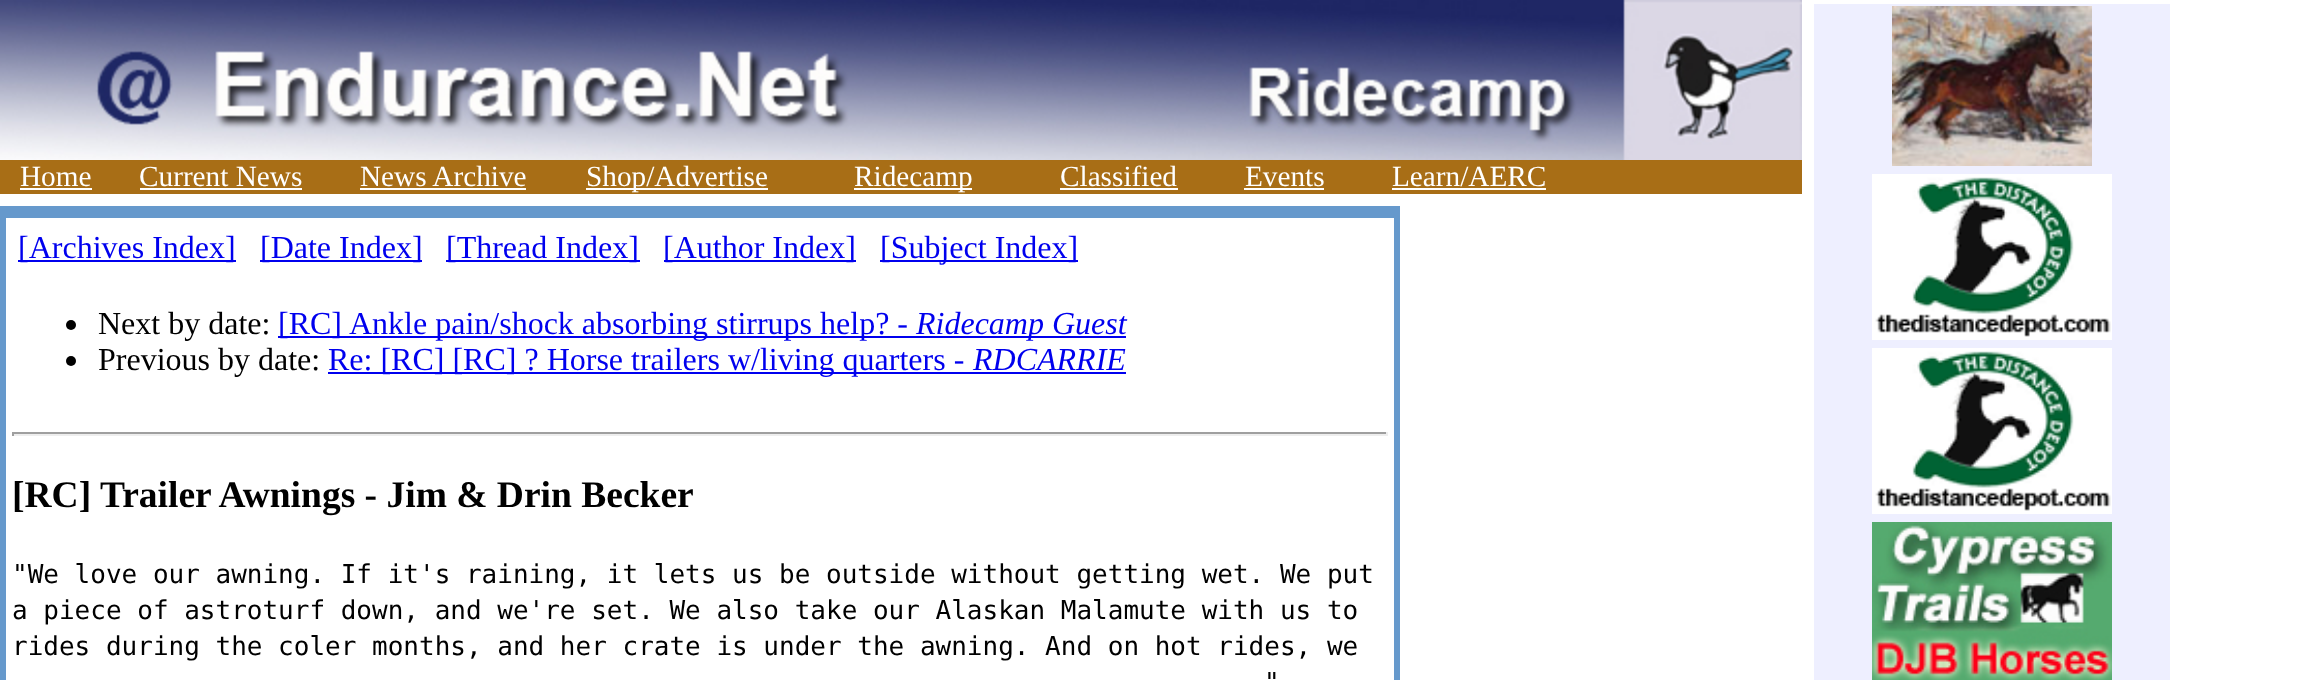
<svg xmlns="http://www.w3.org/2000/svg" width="2306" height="680">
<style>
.a{font:29.25px Liberation Serif;fill:#fff}
.b{font:32px Liberation Serif;fill:#00e}
.c{font:32px Liberation Serif;fill:#000}
.d{font:italic 32px Liberation Serif;fill:#00e}
.e{font:bold 37.5px Liberation Serif;fill:#000}
.f{font:26px DejaVu Sans Mono;fill:#000}
</style>
<rect width="100%" height="100%" fill="#fff"/>
<image href="1.png" x="0" y="0" width="1174" height="160"/>
<image href="2.png" x="1174" y="0" width="628" height="160"/>
<path fill="#eeefff" d="M1814 4h356v676H1814z"/>
<image href="3.png" x="1892" y="6" width="200" height="160"/>
<image href="4.png" x="1872" y="174" width="240" height="166"/>
<image href="5.png" x="1872" y="348" width="240" height="166"/>
<image href="6.png" x="1872" y="522" width="240" height="158"/>
<path fill="#a86e16" d="M0 160h1802v34H0z"/>
<path fill="#fff" d="M20 188h72v2H20z"/>
<path fill="#fff" d="M140 188h162v2H140z"/>
<path fill="#fff" d="M360 188h166v2H360z"/>
<path fill="#fff" d="M586 188h182v2H586z"/>
<path fill="#fff" d="M854 188h118v2H854z"/>
<path fill="#fff" d="M1060 188h118v2H1060z"/>
<path fill="#fff" d="M1244 188h80v2H1244z"/>
<path fill="#fff" d="M1392 188h154v2H1392z"/>
<path fill="#69c" d="M0 206h1400v474H0z"/>
<path fill="#fff" d="M6 218h1388v462H6z"/>
<path fill="#00e" d="M18 260h218v2H18z"/>
<path fill="#00e" d="M260 260h162v2H260z"/>
<path fill="#00e" d="M446 260h194v2H446z"/>
<path fill="#00e" d="M664 260h192v2H664z"/>
<path fill="#00e" d="M880 260h198v2H880z"/>
<circle fill="#000" cx="71" cy="325" r="5"/>
<path fill="#00e" d="M278 336h848v2H278z"/>
<circle fill="#000" cx="71" cy="361" r="5"/>
<path fill="#00e" d="M328 372h798v2H328z"/>
<path fill="#9f9f9f" d="M12 432h1376v2H12z"/>
<path fill="#eee" d="M1386 432h2v4H1386z"/>
<path fill="#eee" d="M12 434h1376v2H12z"/>
<path fill="#9f9f9f" d="M12 432h2v4H12z"/>
<text class="a" x="20" y="186">Home</text>
<text class="a" x="139" y="186">Current News</text>
<text class="a" x="360" y="186">News Archive</text>
<text class="a" x="586" y="186">Shop/Advertise</text>
<text class="a" x="854" y="186">Ridecamp</text>
<text class="a" x="1060" y="186">Classified</text>
<text class="a" x="1245" y="186">Events</text>
<text class="a" x="1392" y="186">Learn/AERC</text>
<text class="b" x="18" y="258">[Archives Index]</text>
<text class="b" x="260" y="258">[Date Index]</text>
<text class="b" x="446" y="258">[Thread Index]</text>
<text class="b" x="663" y="258">[Author Index]</text>
<text class="b" x="880" y="258">[Subject Index]</text>
<text class="c" x="98" y="334">Next by date:</text>
<text class="b" x="278" y="334">[RC]</text>
<text class="b" x="349" y="334">Ankle pain/shock absorbing stirrups help? -</text>
<text class="d" x="916" y="334">Ridecamp Guest</text>
<text class="c" x="98" y="370">Previous by date:</text>
<text class="b" x="328" y="370">Re: [RC] [RC] ? Horse trailers w/living quarters -</text>
<text class="d" x="973" y="370">RDCARRIE</text>
<text class="e" x="12" y="507">[RC]</text>
<text class="e" x="100" y="507">Trailer Awnings - Jim &amp; Drin Becker</text>
<text class="f" x="12" y="583">"We love our awning. If it's raining, it lets us be outside without getting wet. We put</text>
<text class="f" x="12" y="619">a piece of astroturf down, and we're set. We also take our Alaskan Malamute with us to</text>
<text class="f" x="12" y="655">rides during the coler months, and her crate is under the awning. And on hot rides, we</text>
<text class="f" x="1264" y="691">"</text>
</svg>
